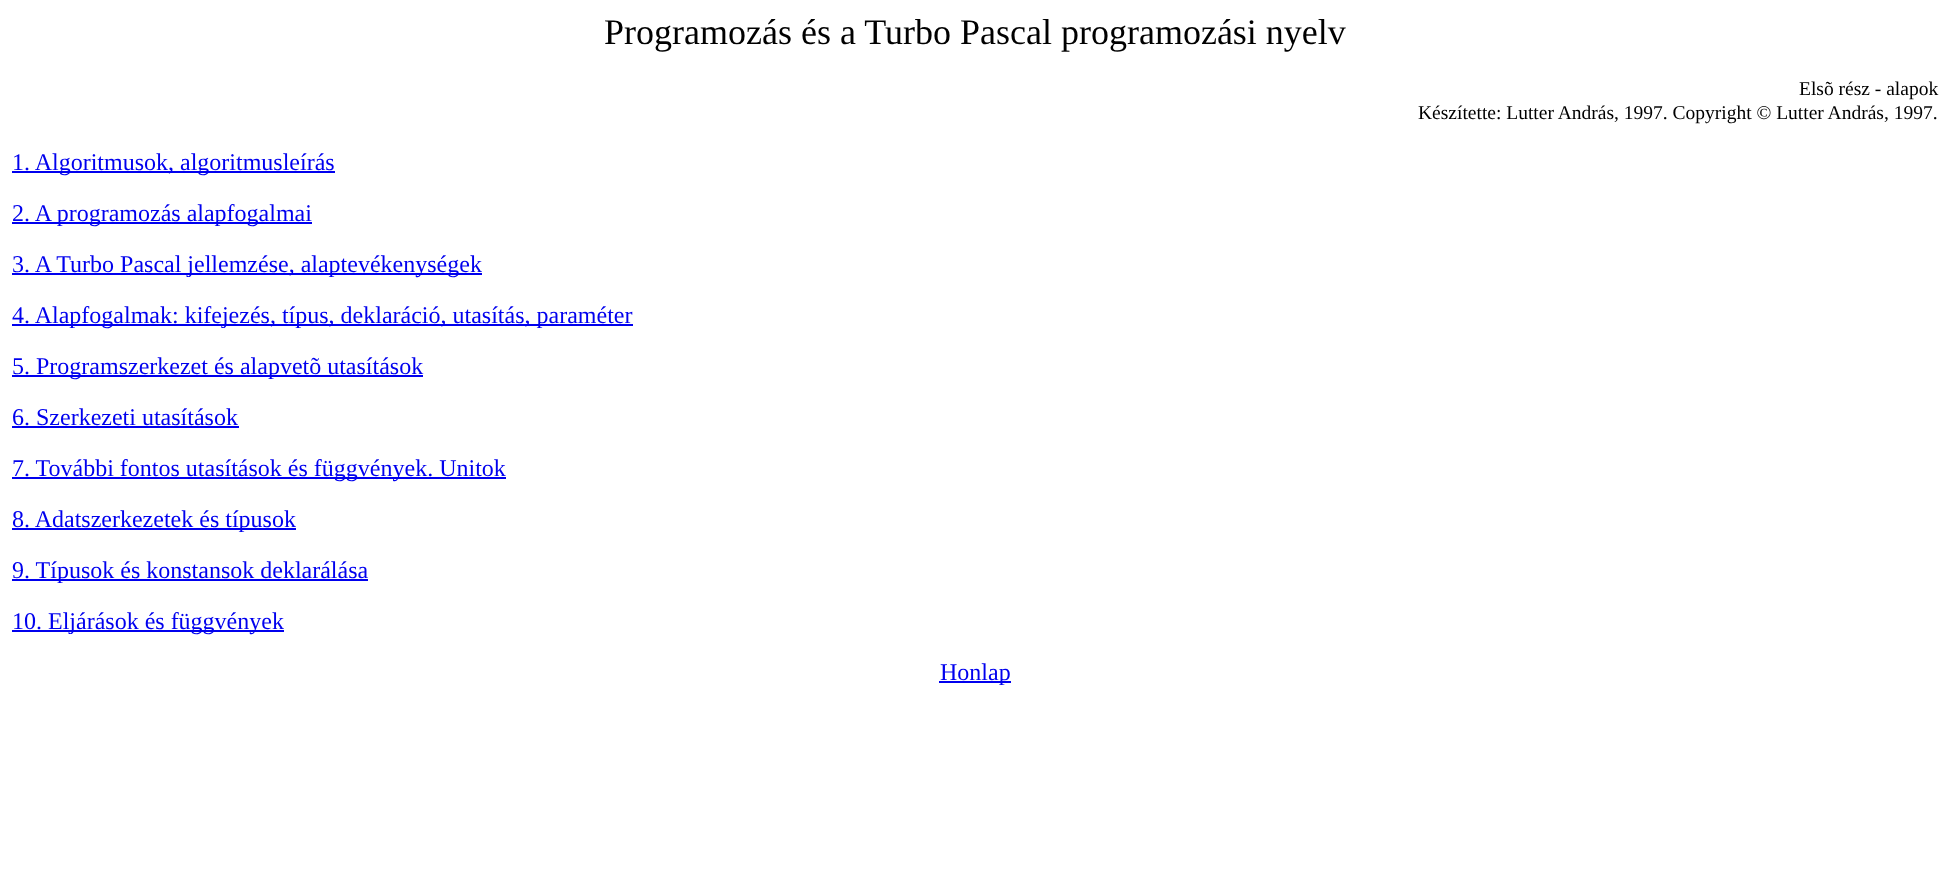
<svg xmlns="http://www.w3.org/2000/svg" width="1949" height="888">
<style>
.a{font:36px Liberation Serif;fill:#000}
.b{font:19.5px Liberation Serif;fill:#000}
.c{font:24px Liberation Serif;fill:#00e}
</style>
<rect width="100%" height="100%" fill="#fff"/>
<path fill="#00e" d="M12 171h323v2H12z"/>
<path fill="#00e" d="M12 222h300v2H12z"/>
<path fill="#00e" d="M12 273h470v2H12z"/>
<path fill="#00e" d="M12 324h621v2H12z"/>
<path fill="#00e" d="M12 375h411v2H12z"/>
<path fill="#00e" d="M12 426h227v2H12z"/>
<path fill="#00e" d="M12 477h494v2H12z"/>
<path fill="#00e" d="M12 528h284v2H12z"/>
<path fill="#00e" d="M12 579h356v2H12z"/>
<path fill="#00e" d="M12 630h272v2H12z"/>
<path fill="#00e" d="M939 681h72v2H939z"/>
<text class="a" x="604" y="44">Programozás és a Turbo Pascal programozási nyelv</text>
<text class="b" x="1799" y="95">Elsõ rész - alapok</text>
<text class="b" x="1418" y="119">Készítette: Lutter András, 1997. Copyright © Lutter András, 1997.</text>
<text class="c" x="12" y="170">1. Algoritmusok, algoritmusleírás</text>
<text class="c" x="12" y="221">2. A programozás alapfogalmai</text>
<text class="c" x="12" y="272">3. A Turbo Pascal jellemzése, alaptevékenységek</text>
<text class="c" x="12" y="323">4. Alapfogalmak: kifejezés, típus, deklaráció, utasítás, paraméter</text>
<text class="c" x="12" y="374">5. Programszerkezet és alapvetõ utasítások</text>
<text class="c" x="12" y="425">6. Szerkezeti utasítások</text>
<text class="c" x="12" y="476">7. További fontos utasítások és függvények. Unitok</text>
<text class="c" x="12" y="527">8. Adatszerkezetek és típusok</text>
<text class="c" x="12" y="578">9. Típusok és konstansok deklarálása</text>
<text class="c" x="12" y="629">10. Eljárások és függvények</text>
<text class="c" x="940" y="680">Honlap</text>
</svg>
